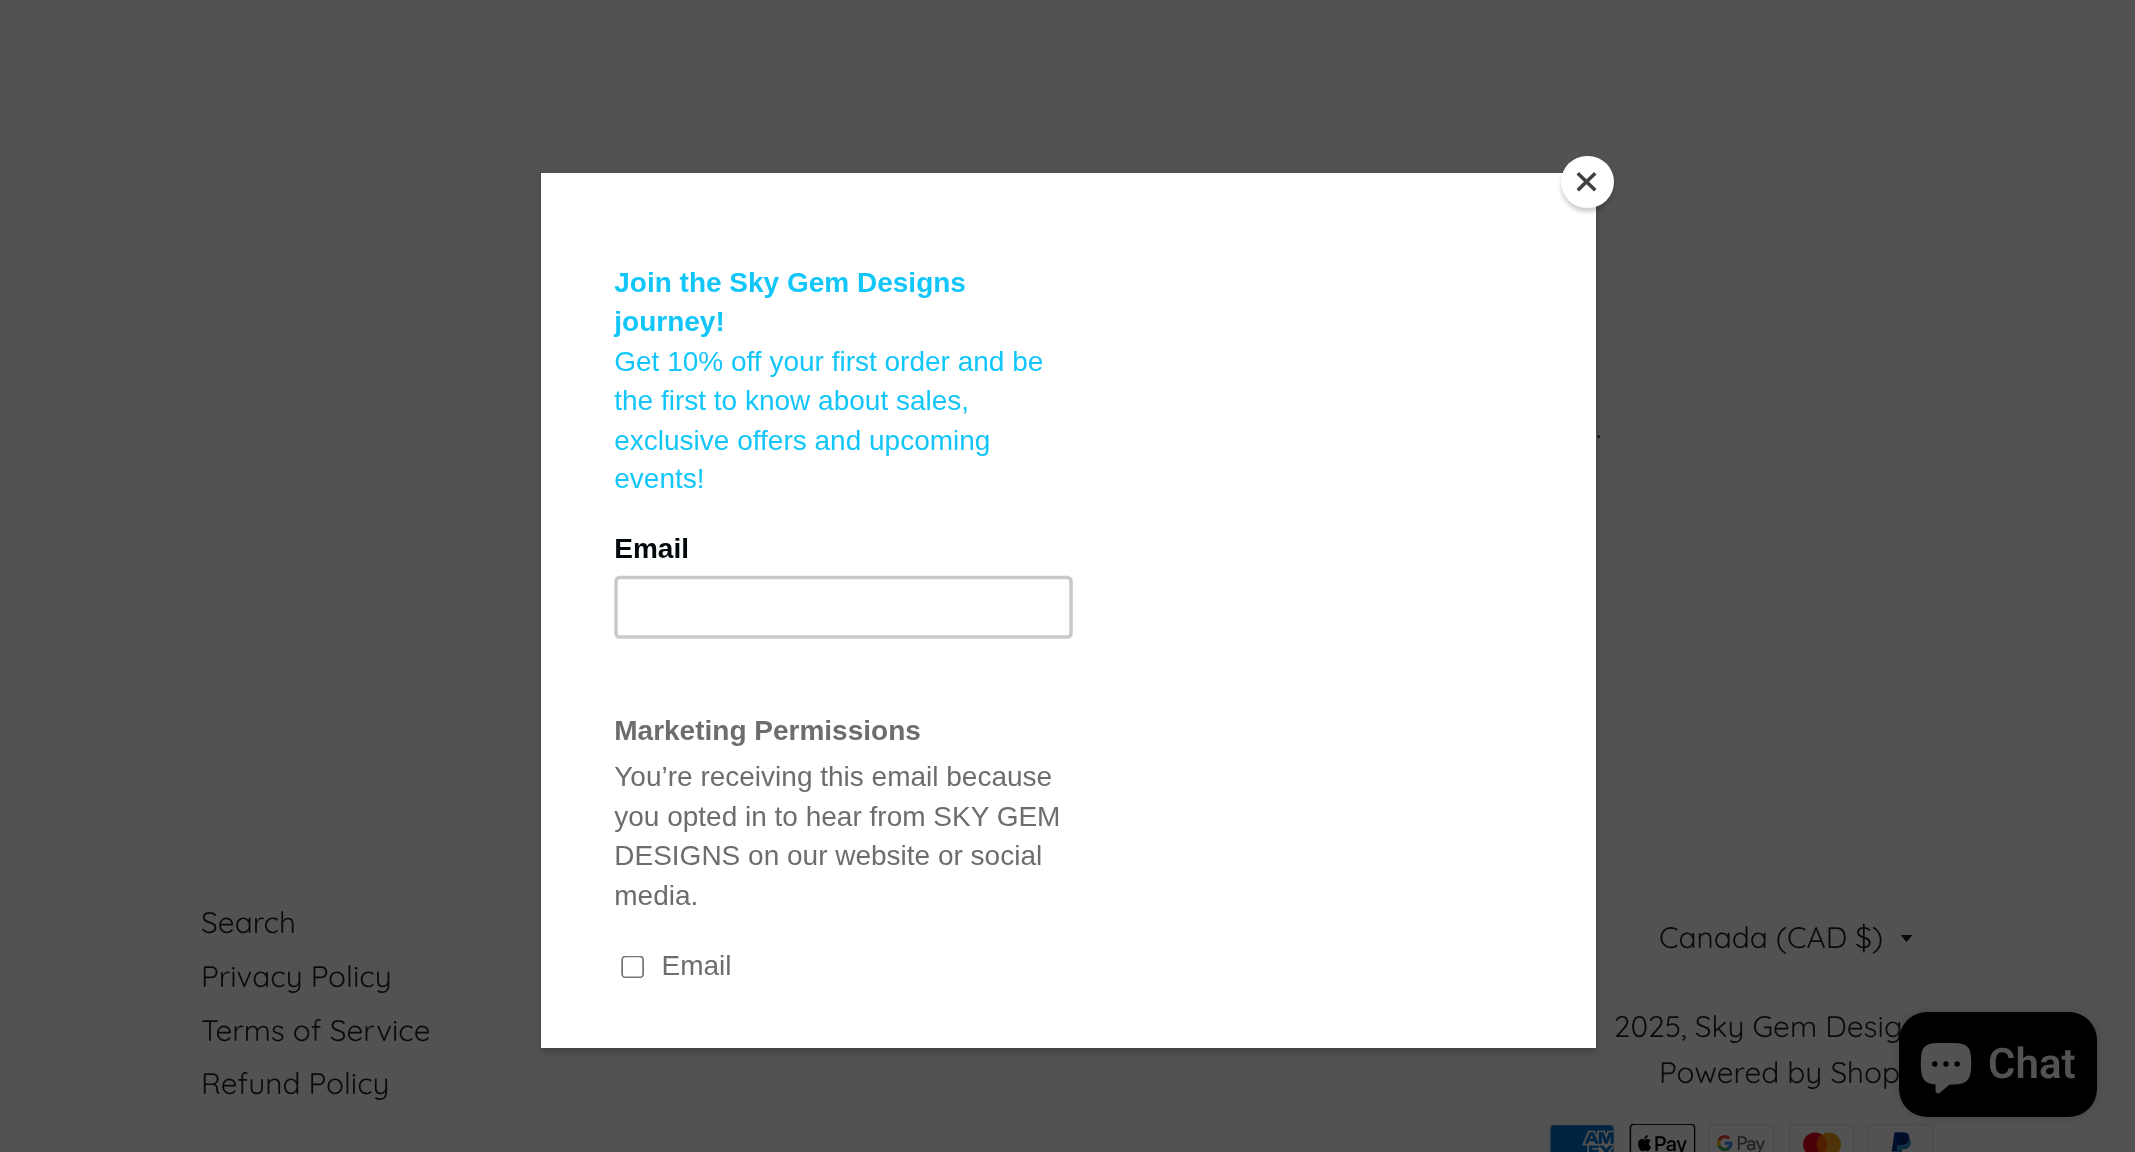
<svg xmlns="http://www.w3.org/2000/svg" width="2135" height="1152">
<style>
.a{font:29.75px Quicksand;fill:#0a0a0b}
.b{font:600 42px Roboto;fill:#525252}
</style>
<defs>
<clipPath id="clip1"><path d="M1901 935h14v8H1901z"/></clipPath>
</defs>
<rect width="100%" height="100%" fill="#525252"/>
<path fill="#00000033" filter="blur(3.5px)" d="M541 177h1055v875H541z"/>
<image href="1.png" x="541" y="173" width="1055" height="875"/>
<rect fill="#00000033" filter="blur(2px)" x="1561" y="159" width="53" height="53" rx="26.5"/>
<rect fill="#fff" x="1561" y="156" width="53" height="52" rx="26"/>
<path fill="#414141" d="M1594 172l2.5 2.5l-17.5 17l-2.5-2.5z"/>
<path fill="#414141" d="M1576.5 174.5l2.5-2.5l17.5 17l-2.5 2.5z"/>
<g clip-path="url(#clip1)">
<path fill="#0a0a0b" d="M1900.5 934.5l6 7.5l6.5-7.5z"/>
</g>
<image href="2.png" x="1549" y="1124" width="66" height="28"/>
<image href="3.png" x="1629" y="1124" width="67" height="28"/>
<image href="4.png" x="1708" y="1124" width="67" height="28"/>
<image href="5.png" x="1789" y="1124" width="66" height="28"/>
<image href="6.png" x="1867" y="1124" width="67" height="28"/>
<rect fill="#00000026" filter="blur(4.5px)" x="1899" y="1012" width="198" height="105" rx="28"/>
<text class="a" x="1596" y="438">.</text>
<text class="a" x="201" y="933">Search</text>
<text class="a" x="201" y="987">Privacy Policy</text>
<text class="a" x="201" y="1041">Terms of Service</text>
<text class="a" x="201" y="1094">Refund Policy</text>
<text class="a" x="1659" y="948">Canada (CAD $)</text>
<text class="a" x="1614" y="1037">2025, Sky Gem Desig</text>
<text class="a" x="1659" y="1083">Powered by Shop</text>
<rect fill="#000" x="1899" y="1012" width="198" height="105" rx="28"/>
<image href="7.png" x="1920" y="1043" width="52" height="51"/>
<text class="b" x="1988" y="1078">Chat</text>
</svg>
